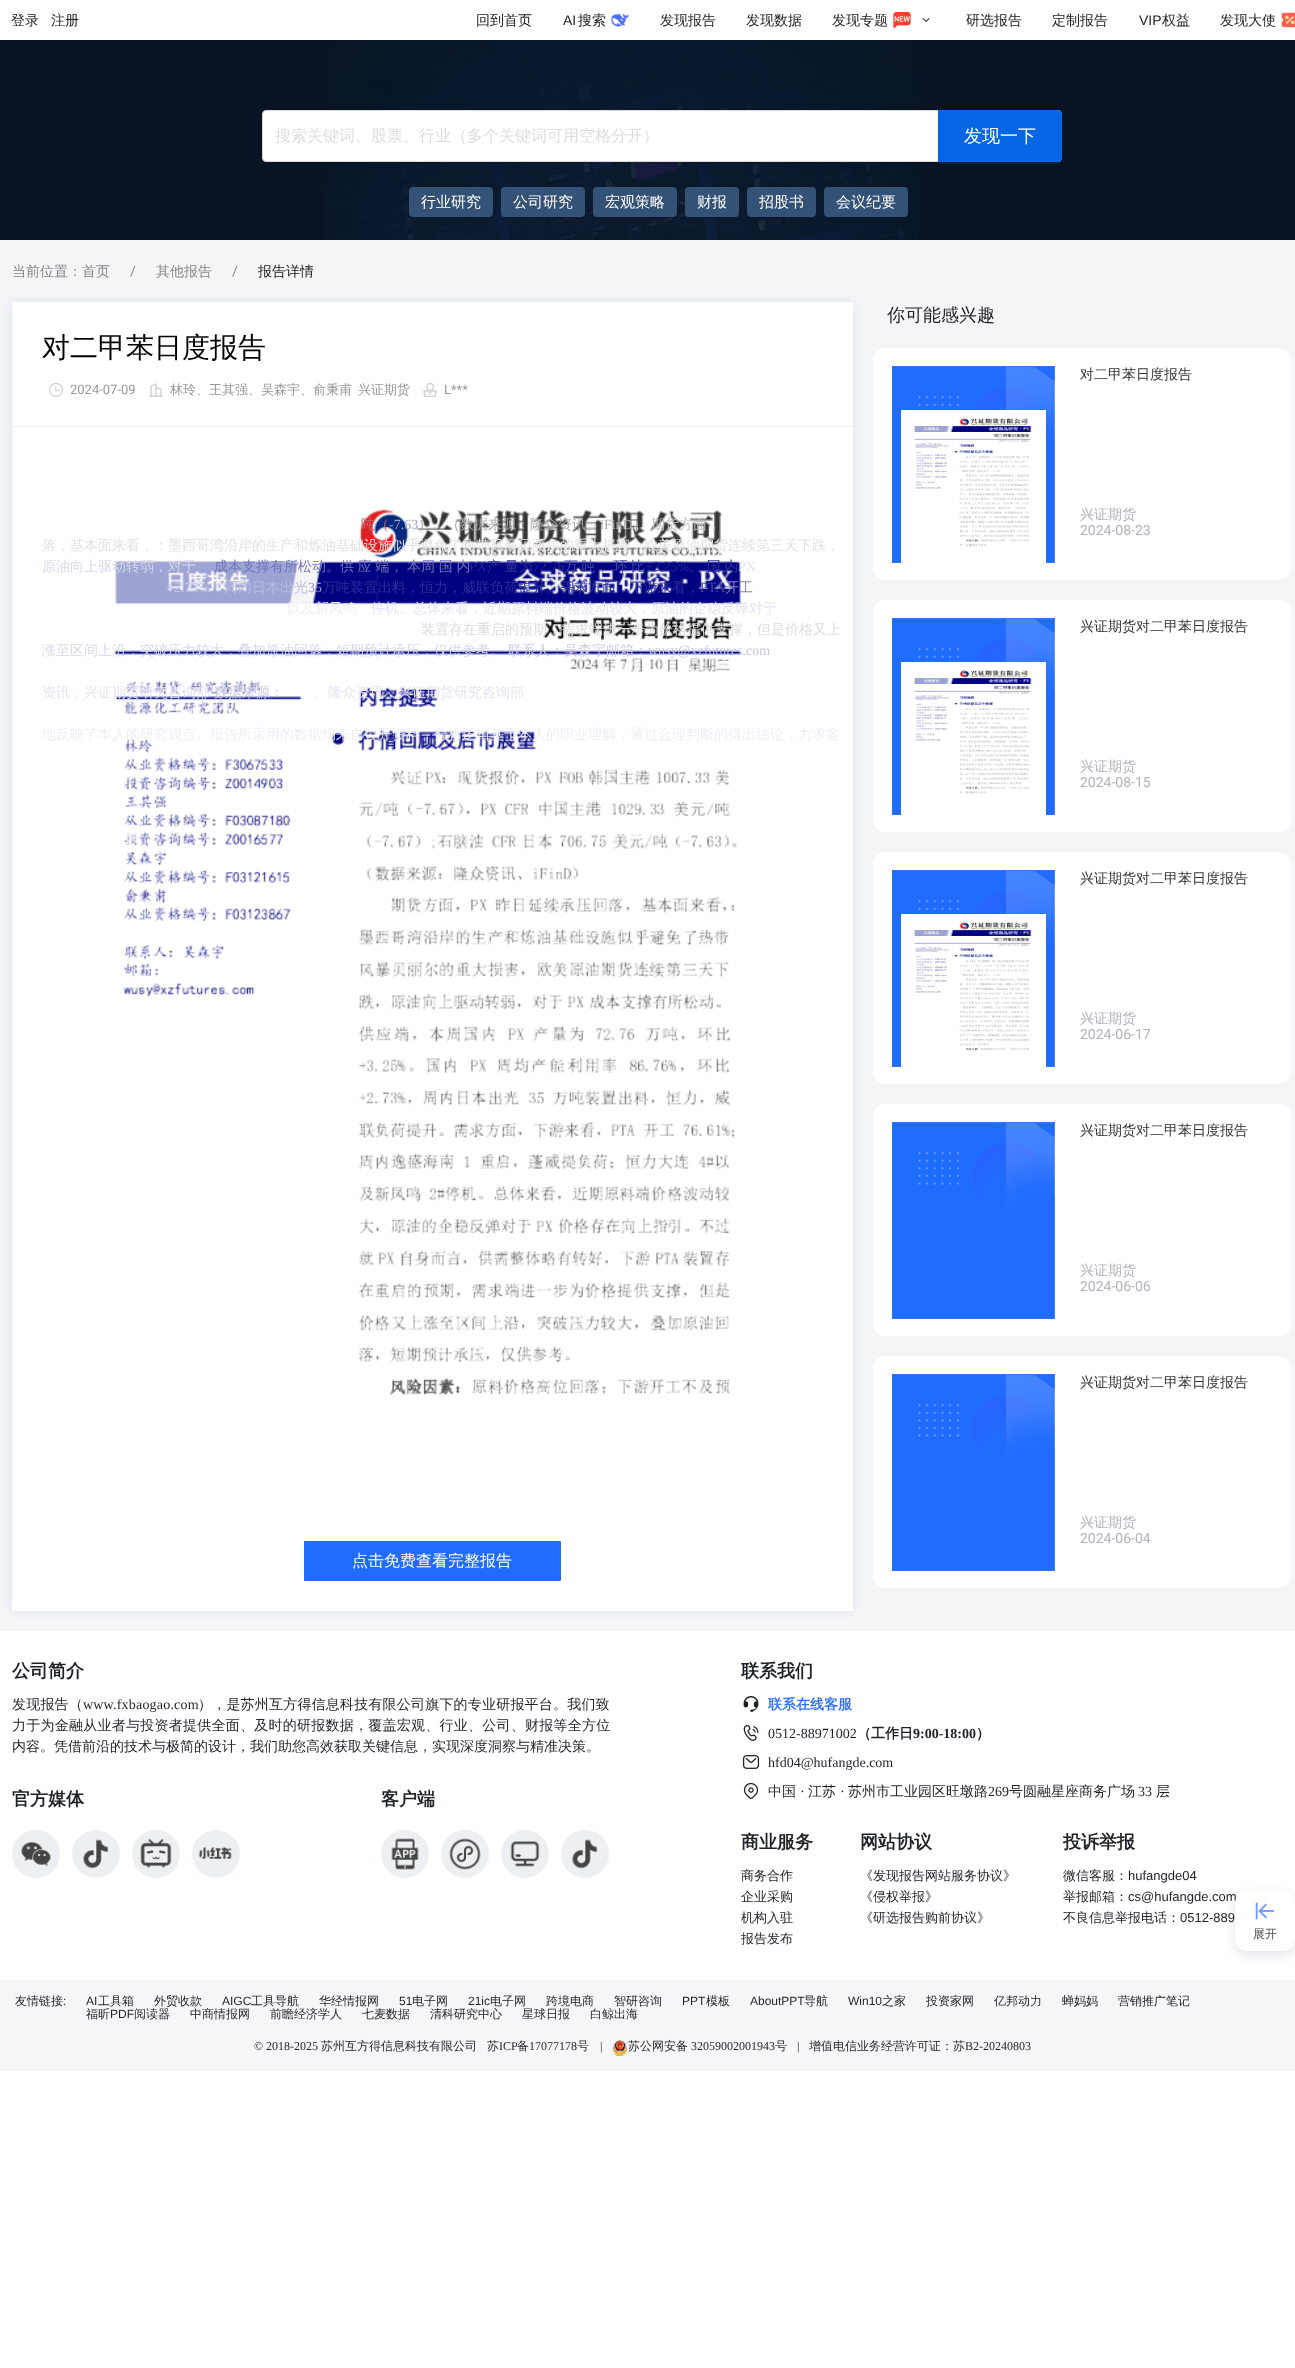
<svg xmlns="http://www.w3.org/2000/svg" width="1295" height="2368">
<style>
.a{font:500 14px WenQuanYi Zen Hei;fill:#222}
.b{font:14px Liberation Sans;fill:#222}
.c{font:500 16px WenQuanYi Zen Hei;fill:#ddd}
.d{font:500 18px WenQuanYi Zen Hei;fill:#fff}
.e{font:500 15px WenQuanYi Zen Hei;fill:#fff}
.f{font:500 14px WenQuanYi Zen Hei;fill:#868788}
.g{font:14px Roboto;fill:#868788}
.h{font:500 28px WenQuanYi Zen Hei;fill:#000}
.i{font:13px Roboto;fill:#999}
.j{font:500 13px WenQuanYi Zen Hei;fill:#999}
.k{font:500 14px WenQuanYi Zen Hei;fill:#cd6571}
.l{font:14px Liberation Serif;fill:#99a7ca}
.m{font:500 14px WenQuanYi Zen Hei;fill:#a6a5a5}
.n{font:14px Liberation Serif;fill:#b0afaf}
.o{font:500 14px WenQuanYi Zen Hei;fill:#bfbebe}
.p{font:500 14px WenQuanYi Zen Hei;fill:#e6e0e1}
.q{font:500 14px WenQuanYi Zen Hei;fill:#d6d9ec}
.r{font:500 14px WenQuanYi Zen Hei;fill:#7173b9}
.s{font:14px Liberation Serif;fill:#232492}
.t{font:500 14px WenQuanYi Zen Hei;fill:#2c2d97}
.u{font:14px Liberation Serif;fill:#2c2d97}
.v{font:500 14px WenQuanYi Zen Hei;fill:#4646a3}
.w{font:14px Liberation Serif;fill:#e4e4f2}
.x{font:14px Liberation Serif;fill:#c1c5e3}
.y{font:500 14px WenQuanYi Zen Hei;fill:#b6bbdd}
.z{font:14px Liberation Serif;fill:#9697c8}
.a1{font:14px Liberation Serif;fill:#4646a3}
.b1{font:500 14px WenQuanYi Zen Hei;fill:#8383c1}
.c1{font:500 14px WenQuanYi Zen Hei;fill:#eeeef6}
.d1{font:500 14px WenQuanYi Zen Hei;fill:#e4e4f2}
.e1{font:500 14px WenQuanYi Zen Hei;fill:#ddd}
.f1{font:500 14px WenQuanYi Zen Hei;fill:#cccce6}
.g1{font:500 14px WenQuanYi Zen Hei;fill:#f6f6fb}
.h1{font:500 16px WenQuanYi Zen Hei;fill:#fff}
.i1{font:500 18px WenQuanYi Zen Hei;fill:#1d2228}
.j1{font:500 14px WenQuanYi Zen Hei;fill:#333}
.k1{font:500 14px WenQuanYi Zen Hei;fill:#b3b0bb}
.l1{font:14px Roboto;fill:#b3b0bb}
.m1{font:bold 18px WenQuanYi Zen Hei;fill:#1d2228}
.n1{font:500 14px WenQuanYi Zen Hei;letter-spacing:0.2px;fill:#1d2228}
.o1{font:14px Liberation Serif;letter-spacing:0.2px;fill:#1d2228}
.p1{font:500 14px WenQuanYi Zen Hei;letter-spacing:0.25px;fill:#1d2228}
.q1{font:500 14px WenQuanYi Zen Hei;fill:#1d2228}
.r1{font:bold 14px WenQuanYi Zen Hei;fill:#3370ff}
.s1{font:14px Liberation Serif;fill:#1d2228}
.t1{font:bold 14px WenQuanYi Zen Hei;fill:#1d2228}
.u1{font:bold 14px Liberation Serif;fill:#1d2228}
.v1{font:500 13px WenQuanYi Zen Hei;fill:#1d2228}
.w1{font:13px Liberation Sans;fill:#1d2228}
.x1{font:500 12px WenQuanYi Zen Hei;fill:#1d2228}
.y1{font:12px Liberation Sans;fill:#1d2228}
.z1{font:12px Liberation Serif;fill:#1d2228}
.a2{font:500 12px WenQuanYi Zen Hei;fill:#4d4d4d}
</style>
<defs>
<clipPath id="clip1"><path d="M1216 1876h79v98h-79zm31 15h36c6.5 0 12 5.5 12 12v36c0 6.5-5.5 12-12 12h-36c-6.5 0-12-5.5-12-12v-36c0-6.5 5.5-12 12-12z" clip-rule="evenodd"/></clipPath>
</defs>
<rect width="100%" height="100%" fill="#fff"/>
<path fill="#f3f5f7" d="M0 240h1295v1391H0z"/>
<image href="1.png" x="610" y="13" width="20" height="14"/>
<image href="2.png" x="893" y="12" width="18" height="16"/>
<image href="3.png" x="922" y="18" width="8" height="4"/>
<image href="4.png" x="1281" y="12" width="14" height="16"/>
<path fill="#081424" d="M0 40h1295v200H0z"/>
<image href="5.png" x="323" y="40" width="595" height="200"/>
<rect fill="#fff" stroke="#d9d9d9" x="262.5" y="110.5" width="799" height="51" rx="3.5"/>
<path fill="#0591ff1a" d="M938 162v2h120c2 0 4-2 4-4v-2c0 2-2 4-4 4z"/>
<path fill="#0666e5" d="M938 110h120c2 0 4 2 4 4v44c0 2-2 4-4 4h-120z"/>
<rect fill="#335275" x="409" y="187" width="84" height="30" rx="4"/>
<rect fill="#335275" x="501" y="187" width="84" height="30" rx="4"/>
<rect fill="#335275" x="593" y="187" width="84" height="30" rx="4"/>
<rect fill="#335275" x="685" y="187" width="54" height="30" rx="4"/>
<rect fill="#335275" x="747" y="187" width="69" height="30" rx="4"/>
<rect fill="#335275" x="824" y="187" width="84" height="30" rx="4"/>
<path fill="#27426b1a" filter="blur(5px)" d="M12 302h841v1309H12z"/>
<path fill="#fff" d="M12 302h841v1309H12z"/>
<image href="6.png" x="49" y="383" width="14" height="14"/>
<image href="7.png" x="149" y="383" width="14" height="14"/>
<image href="8.png" x="423" y="382" width="14" height="15"/>
<path fill="#f0f0f0" d="M12 426h841v1H12z"/>
<image href="9.png" x="114" y="509" width="627" height="887"/>
<rect fill="#206cff" x="304" y="1541" width="257" height="40" rx="1"/>
<rect fill="#fff" x="873" y="348" width="418" height="232" rx="12"/>
<image href="10.png" x="892" y="366" width="163" height="197"/>
<path fill="#fff" d="M901 410h145v153H901z"/>
<image href="11.png" x="914" y="418" width="118" height="129"/>
<rect fill="#fff" x="873" y="600" width="418" height="232" rx="12"/>
<image href="10.png" x="892" y="618" width="163" height="197"/>
<path fill="#fff" d="M901 662h145v153H901z"/>
<image href="12.png" x="914" y="670" width="118" height="124"/>
<rect fill="#fff" x="873" y="852" width="418" height="232" rx="12"/>
<image href="10.png" x="892" y="870" width="163" height="197"/>
<path fill="#fff" d="M901 914h145v153H901z"/>
<image href="13.png" x="914" y="922" width="118" height="129"/>
<rect fill="#fff" x="873" y="1104" width="418" height="232" rx="12"/>
<image href="10.png" x="892" y="1122" width="163" height="197"/>
<rect fill="#fff" x="873" y="1356" width="418" height="232" rx="12"/>
<image href="10.png" x="892" y="1374" width="163" height="197"/>
<circle fill="#edf0f2" cx="36" cy="1854" r="24"/>
<image href="14.png" x="21" y="1841" width="30" height="25"/>
<circle fill="#edf0f2" cx="96" cy="1854" r="24"/>
<image href="15.png" x="83" y="1839" width="26" height="30"/>
<circle fill="#edf0f2" cx="156" cy="1854" r="24"/>
<image href="16.png" x="140" y="1838" width="32" height="30"/>
<circle fill="#edf0f2" cx="216" cy="1854" r="24"/>
<image href="17.png" x="198" y="1847" width="34" height="12"/>
<circle fill="#edf0f2" cx="405" cy="1854" r="24"/>
<image href="18.png" x="391" y="1838" width="28" height="32"/>
<circle fill="#edf0f2" cx="465" cy="1854" r="24"/>
<image href="19.png" x="449" y="1838" width="32" height="32"/>
<circle fill="#edf0f2" cx="525" cy="1854" r="24"/>
<image href="20.png" x="510" y="1841" width="30" height="26"/>
<circle fill="#edf0f2" cx="585" cy="1854" r="24"/>
<image href="21.png" x="572" y="1839" width="26" height="30"/>
<image href="22.png" x="743" y="1696" width="16" height="16"/>
<image href="23.png" x="743" y="1725" width="16" height="16"/>
<image href="24.png" x="742" y="1755" width="18" height="14"/>
<image href="25.png" x="743" y="1783" width="16" height="16"/>
<path fill="#fbfbfb" d="M0 1979h1295v1H0z"/>
<path fill="#f5f6f7" d="M0 1980h1295v91H0z"/>
<image href="26.png" x="612" y="2040" width="16" height="16"/>
<g clip-path="url(#clip1)">
<rect fill="#bfc7d880" filter="blur(6px)" x="1235" y="1895" width="60" height="60" rx="12"/>
</g>
<text class="a" x="11" y="25">登录</text>
<text class="a" x="51" y="25">注册</text>
<text class="a" x="476" y="25">回到首页</text>
<text class="b" x="563" y="25">AI</text>
<text class="a" x="578" y="25">搜索</text>
<text class="a" x="660" y="25">发现报告</text>
<text class="a" x="746" y="25">发现数据</text>
<text class="a" x="832" y="25">发现专题</text>
<text class="a" x="966" y="25">研选报告</text>
<text class="a" x="1052" y="25">定制报告</text>
<text class="b" x="1139" y="25">VIP</text>
<text class="a" x="1162" y="25">权益</text>
<text class="a" x="1220" y="25">发现大使</text>
<text class="c" x="275" y="141">搜索关键词、股票、行业（多个关键词可用空格分开）</text>
<text class="d" x="964" y="142">发现一下</text>
<text class="e" x="421" y="207">行业研究</text>
<text class="e" x="513" y="207">公司研究</text>
<text class="e" x="605" y="207">宏观策略</text>
<text class="e" x="697" y="207">财报</text>
<text class="e" x="759" y="207">招股书</text>
<text class="e" x="836" y="207">会议纪要</text>
<text class="f" x="12" y="276">当前位置：首页</text>
<text class="g" x="130" y="276">/</text>
<text class="f" x="156" y="276">其他报告</text>
<text class="g" x="232" y="276">/</text>
<text class="a" x="258" y="276">报告详情</text>
<text class="h" x="42" y="357">对二甲苯日度报告</text>
<text class="i" x="70" y="394">2024-07-09</text>
<text class="j" x="170" y="394">林玲、王其强、吴森宇、俞秉甫</text>
<text class="j" x="358" y="394">兴证期货</text>
<text class="i" x="444" y="394">L***</text>
<text class="k" x="361" y="529">吨（</text>
<text class="l" x="389" y="529">-7.63</text>
<text class="m" x="418" y="529">）。（数据来源：隆众资讯、</text>
<text class="n" x="600" y="529">iFinD</text>
<text class="m" x="633" y="529">）</text>
<text class="o" x="651" y="529">期货方面，</text>
<text class="p" x="42" y="550">落，基本面来看，：墨西哥湾沿岸的生产和炼油基础设施似乎避免了热带风暴贝丽尔的重大损害，欧美原油期货连续第三天下跌，</text>
<text class="q" x="42" y="571">原油向上驱动转弱，对于</text>
<text class="r" x="214" y="571" word-spacing="-0.5">成本支撑有所松动。供 应 端， 本周 国 内</text>
<text class="s" x="469" y="571">PX</text>
<text class="t" x="487" y="571" word-spacing="-0.5">产 量为</text>
<text class="u" x="533" y="571">72.76</text>
<text class="v" x="564" y="571" word-spacing="-0.5">万 吨， 环 比</text>
<text class="s" x="645" y="571">+3.25%</text>
<text class="t" x="689" y="571" word-spacing="-0.5">。 国 内</text>
<text class="w" x="738" y="571">PX</text>
<text class="x" x="166" y="592">+2.73%</text>
<text class="y" x="210" y="592">，周内日本出光</text>
<text class="z" x="308" y="592">35</text>
<text class="t" x="322" y="592">万吨装置出料，恒力，威联负荷提升。需求方面，下游来看，</text>
<text class="a1" x="700" y="592">PTA</text>
<text class="b1" x="725" y="592">开工</text>
<text class="c1" x="287" y="613">以及新凤鸣</text>
<text class="d1" x="371" y="613">停机。总体来看，近期原料端价格波动较大，原油的企稳反弹对于</text>
<text class="e1" x="421" y="634">装置存在重启的预期，需求端进一步为价格提供支撑，但是价格又上</text>
<text class="q" x="42" y="655">涨至区间上沿，突破压力较大，叠加原油回落，短期预计承压，仅供参考。</text>
<text class="f1" x="508" y="655">联系人：吴森宇邮箱：</text>
<text class="x" x="648" y="655">wusy@xzfutures.com</text>
<text class="d1" x="42" y="697">资讯，兴证期货研究咨询部</text>
<text class="f1" x="214" y="697">数据来源：</text>
<text class="d1" x="314" y="697">、隆众资讯，兴证期货研究咨询部</text>
<text class="c1" x="42" y="739">地反映了本人的研究观点。报告所采用的数据均来自公开资料，分析逻辑基于本人的职业理解，通过合理判断的得出结论，力求客</text>
<text class="g1" x="126" y="844">断。</text>
<text class="h1" x="352" y="1566">点击免费查看完整报告</text>
<text class="i1" x="887" y="321">你可能感兴趣</text>
<text class="j1" x="1080" y="379">对二甲苯日度报告</text>
<text class="k1" x="1080" y="519">兴证期货</text>
<text class="l1" x="1080" y="535">2024-08-23</text>
<text class="j1" x="1080" y="631">兴证期货对二甲苯日度报告</text>
<text class="k1" x="1080" y="771">兴证期货</text>
<text class="l1" x="1080" y="787">2024-08-15</text>
<text class="j1" x="1080" y="883">兴证期货对二甲苯日度报告</text>
<text class="k1" x="1080" y="1023">兴证期货</text>
<text class="l1" x="1080" y="1039">2024-06-17</text>
<text class="j1" x="1080" y="1135">兴证期货对二甲苯日度报告</text>
<text class="k1" x="1080" y="1275">兴证期货</text>
<text class="l1" x="1080" y="1291">2024-06-06</text>
<text class="j1" x="1080" y="1387">兴证期货对二甲苯日度报告</text>
<text class="k1" x="1080" y="1527">兴证期货</text>
<text class="l1" x="1080" y="1543">2024-06-04</text>
<text class="m1" x="12" y="1677">公司简介</text>
<text class="n1" x="12" y="1709">发现报告（</text>
<text class="o1" x="83" y="1709">www.fxbaogao.com</text>
<text class="n1" x="198" y="1709">），是苏州互方得信息科技有限公司旗下的专业研报平台。我们致</text>
<text class="p1" x="12" y="1730">力于为金融从业者与投资者提供全面、及时的研报数据，覆盖宏观、行业、公司、财报等全方位</text>
<text class="q1" x="12" y="1751">内容。凭借前沿的技术与极简的设计，我们助您高效获取关键信息，实现深度洞察与精准决策。</text>
<text class="m1" x="12" y="1805">官方媒体</text>
<text class="m1" x="381" y="1805">客户端</text>
<text class="m1" x="741" y="1677">联系我们</text>
<text class="r1" x="768" y="1709">联系在线客服</text>
<text class="s1" x="768" y="1738">0512-88971002</text>
<text class="t1" x="857" y="1738">（工作日</text>
<text class="u1" x="913" y="1738">9:00-18:00</text>
<text class="t1" x="976" y="1738">）</text>
<text class="s1" x="768" y="1767">hfd04@hufangde.com</text>
<text class="q1" x="768" y="1796">中国</text>
<text class="s1" x="800" y="1796">·</text>
<text class="q1" x="808" y="1796">江苏</text>
<text class="s1" x="840" y="1796">·</text>
<text class="q1" x="848" y="1796">苏州市工业园区旺墩路</text>
<text class="s1" x="988" y="1796">269</text>
<text class="q1" x="1009" y="1796">号圆融星座商务广场</text>
<text class="s1" x="1138" y="1796">33</text>
<text class="q1" x="1156" y="1796">层</text>
<text class="m1" x="741" y="1848">商业服务</text>
<text class="v1" x="741" y="1880">商务合作</text>
<text class="v1" x="741" y="1901">企业采购</text>
<text class="v1" x="741" y="1922">机构入驻</text>
<text class="v1" x="741" y="1943">报告发布</text>
<text class="m1" x="860" y="1848">网站协议</text>
<text class="v1" x="860" y="1880">《发现报告网站服务协议》</text>
<text class="v1" x="860" y="1901">《侵权举报》</text>
<text class="v1" x="860" y="1922">《研选报告购前协议》</text>
<text class="m1" x="1063" y="1848">投诉举报</text>
<text class="v1" x="1063" y="1880">微信客服：</text>
<text class="w1" x="1128" y="1880">hufangde04</text>
<text class="v1" x="1063" y="1901">举报邮箱：</text>
<text class="w1" x="1128" y="1901">cs@hufangde.com</text>
<text class="v1" x="1063" y="1922">不良信息举报电话：</text>
<text class="w1" x="1180" y="1922">0512-889</text>
<text class="x1" x="15" y="2005">友情链接</text>
<text class="y1" x="63" y="2005">:</text>
<text class="y1" x="86" y="2005">AI</text>
<text class="x1" x="98" y="2005">工具箱</text>
<text class="x1" x="154" y="2005">外贸收款</text>
<text class="y1" x="222" y="2005">AIGC</text>
<text class="x1" x="251" y="2005">工具导航</text>
<text class="x1" x="319" y="2005">华经情报网</text>
<text class="y1" x="399" y="2005">51</text>
<text class="x1" x="412" y="2005">电子网</text>
<text class="y1" x="468" y="2005">21ic</text>
<text class="x1" x="490" y="2005">电子网</text>
<text class="x1" x="546" y="2005">跨境电商</text>
<text class="x1" x="614" y="2005">智研咨询</text>
<text class="y1" x="682" y="2005">PPT</text>
<text class="x1" x="706" y="2005">模板</text>
<text class="y1" x="750" y="2005">AboutPPT</text>
<text class="x1" x="804" y="2005">导航</text>
<text class="y1" x="848" y="2005">Win10</text>
<text class="x1" x="882" y="2005">之家</text>
<text class="x1" x="926" y="2005">投资家网</text>
<text class="x1" x="994" y="2005">亿邦动力</text>
<text class="x1" x="1062" y="2005">蝉妈妈</text>
<text class="x1" x="1118" y="2005">营销推广笔记</text>
<text class="x1" x="86" y="2018">福昕</text>
<text class="y1" x="110" y="2018">PDF</text>
<text class="x1" x="134" y="2018">阅读器</text>
<text class="x1" x="190" y="2018">中商情报网</text>
<text class="x1" x="270" y="2018">前瞻经济学人</text>
<text class="x1" x="362" y="2018">七麦数据</text>
<text class="x1" x="430" y="2018">清科研究中心</text>
<text class="x1" x="522" y="2018">星球日报</text>
<text class="x1" x="590" y="2018">白鲸出海</text>
<text class="z1" x="254" y="2050">© 2018-2025</text>
<text class="x1" x="321" y="2050">苏州互方得信息科技有限公司</text>
<text class="x1" x="487" y="2050">苏</text>
<text class="z1" x="499" y="2050">ICP</text>
<text class="x1" x="517" y="2050">备</text>
<text class="z1" x="529" y="2050">17077178</text>
<text class="x1" x="577" y="2050">号</text>
<text class="z1" x="600" y="2050">|</text>
<text class="x1" x="628" y="2050">苏公网安备</text>
<text class="z1" x="691" y="2050">32059002001943</text>
<text class="x1" x="775" y="2050">号</text>
<text class="z1" x="797" y="2050">|</text>
<text class="x1" x="809" y="2050">增值电信业务经营许可证：苏</text>
<text class="z1" x="965" y="2050">B2-20240803</text>
<rect fill="#ffffffb3" x="1235" y="1891" width="60" height="60" rx="12"/>
<image href="27.png" x="1255" y="1902" width="20" height="18"/>
<text class="a2" x="1253" y="1938">展开</text>
</svg>
